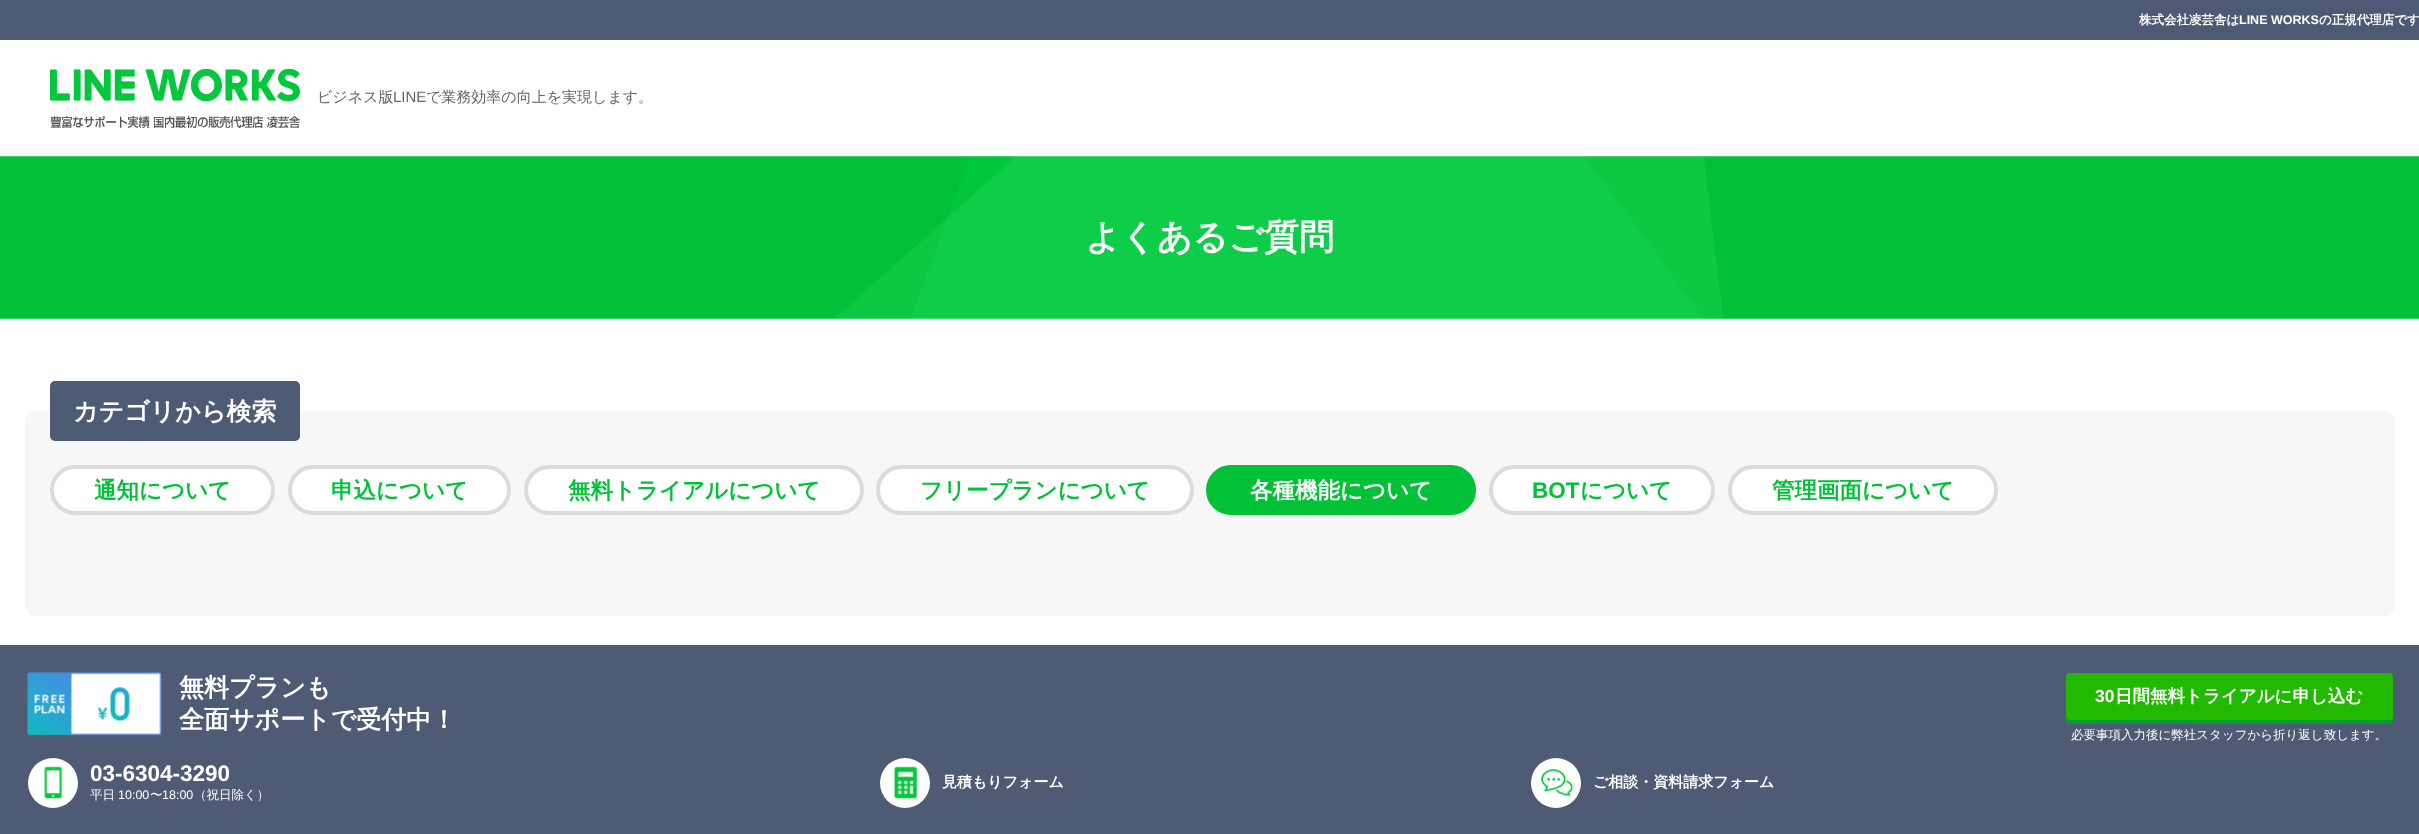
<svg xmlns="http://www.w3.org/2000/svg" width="2419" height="834">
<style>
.a{font:bold 12.5px WenQuanYi Zen Hei;fill:#fff}
.b{font:bold 12.5px Liberation Sans;fill:#fff}
.c{font:500 15px WenQuanYi Zen Hei;fill:#666}
.d{font:15px Liberation Sans;fill:#666}
.e{font:bold 35px WenQuanYi Zen Hei;fill:#fff}
.f{font:bold 25px WenQuanYi Zen Hei;fill:#fff}
.g{font:bold 22.5px WenQuanYi Zen Hei;fill:#01c137}
.h{font:bold 22.5px WenQuanYi Zen Hei;fill:#fff}
.i{font:bold 22.5px Liberation Sans;fill:#01c137}
.j{font:bold 17.5px Liberation Sans;fill:#fff}
.k{font:bold 17.5px WenQuanYi Zen Hei;fill:#fff}
.l{font:500 12.5px WenQuanYi Zen Hei;fill:#fff}
.m{font:bold 22.5px Liberation Sans;fill:#fff}
.n{font:12.5px Liberation Sans;fill:#fff}
.o{font:bold 15px WenQuanYi Zen Hei;fill:#fff}
</style>
<rect width="100%" height="100%" fill="#fff"/>
<path fill="#4e5a74" d="M0 0h2419v40H0z"/>
<image href="1.png" x="50" y="68" width="250" height="61"/>
<image href="2.png" x="0" y="156" width="2419" height="163"/>
<rect fill="#f7f7f7" x="25" y="411" width="2370" height="205" rx="10"/>
<rect fill="#4e5b74" x="50" y="381" width="250" height="60" rx="5"/>
<rect fill="#fff" stroke="#dbdbdb" stroke-width="4" x="52" y="467" width="221" height="46" rx="23"/>
<rect fill="#fff" stroke="#dbdbdb" stroke-width="4" x="290" y="467" width="219" height="46" rx="23"/>
<rect fill="#fff" stroke="#dbdbdb" stroke-width="4" x="526" y="467" width="336" height="46" rx="23"/>
<rect fill="#fff" stroke="#dbdbdb" stroke-width="4" x="878" y="467" width="314" height="46" rx="23"/>
<rect fill="#01c137" stroke="#01c137" stroke-width="4" x="1208" y="467" width="266" height="46" rx="23"/>
<rect fill="#fff" stroke="#dbdbdb" stroke-width="4" x="1491" y="467" width="222" height="46" rx="23"/>
<rect fill="#fff" stroke="#dbdbdb" stroke-width="4" x="1730" y="467" width="266" height="46" rx="23"/>
<path fill="#4f5b74" d="M0 645h2419v189H0z"/>
<image href="3.png" x="27" y="672" width="135" height="64"/>
<path fill="#049f30" d="M2066 679v41c0 2 2 4 4 4h319c2 0 4-2 4-4v-40l-1-2v38c0 2-1 4-3 4h-319c-2 0-4-2-4-4z"/>
<rect fill="#22b900" x="2066" y="673" width="327" height="47" rx="4"/>
<circle fill="#fff" cx="53" cy="783" r="25"/>
<image href="4.png" x="44" y="766" width="19" height="33"/>
<circle fill="#fff" cx="905" cy="783" r="25"/>
<image href="5.png" x="893" y="766" width="24" height="33"/>
<circle fill="#fff" cx="1556" cy="783" r="25"/>
<image href="6.png" x="1541" y="769" width="32" height="28"/>
<text class="a" x="2139" y="24">株式会社凌芸舎は</text>
<text class="b" x="2239" y="24">LINE WORKS</text>
<text class="a" x="2319" y="24">の正規代理店です</text>
<text class="c" x="317" y="102">ビジネス版</text>
<text class="d" x="393" y="102">LINE</text>
<text class="c" x="426" y="102">で業務効率の向上を実現します。</text>
<text class="e" x="1085" y="249">よくあるご質問</text>
<text class="f" x="73" y="420">カテゴリから検索</text>
<text class="g" x="94" y="498">通知について</text>
<text class="g" x="331" y="498">申込について</text>
<text class="g" x="568" y="498">無料トライアルについて</text>
<text class="g" x="920" y="498">フリープランについて</text>
<text class="h" x="1250" y="498">各種機能について</text>
<text class="i" x="1532" y="498">BOT</text>
<text class="g" x="1580" y="498">について</text>
<text class="g" x="1772" y="498">管理画面について</text>
<text class="f" x="179" y="696">無料プランも</text>
<text class="f" x="179" y="728">全面サポートで受付中！</text>
<text class="j" x="2095" y="702">30</text>
<text class="k" x="2115" y="702">日間無料トライアルに申し込む</text>
<text class="l" x="2071" y="739">必要事項入力後に弊社スタッフから折り返し致します。</text>
<text class="m" x="90" y="781">03-6304-3290</text>
<text class="l" x="90" y="799">平日</text>
<text class="n" x="118" y="799">10:00</text>
<text class="l" x="150" y="799">〜</text>
<text class="n" x="162" y="799">18:00</text>
<text class="l" x="194" y="799">（祝日除く）</text>
<text class="o" x="942" y="787">見積もりフォーム</text>
<text class="o" x="1593" y="787">ご相談・資料請求フォーム</text>
</svg>
